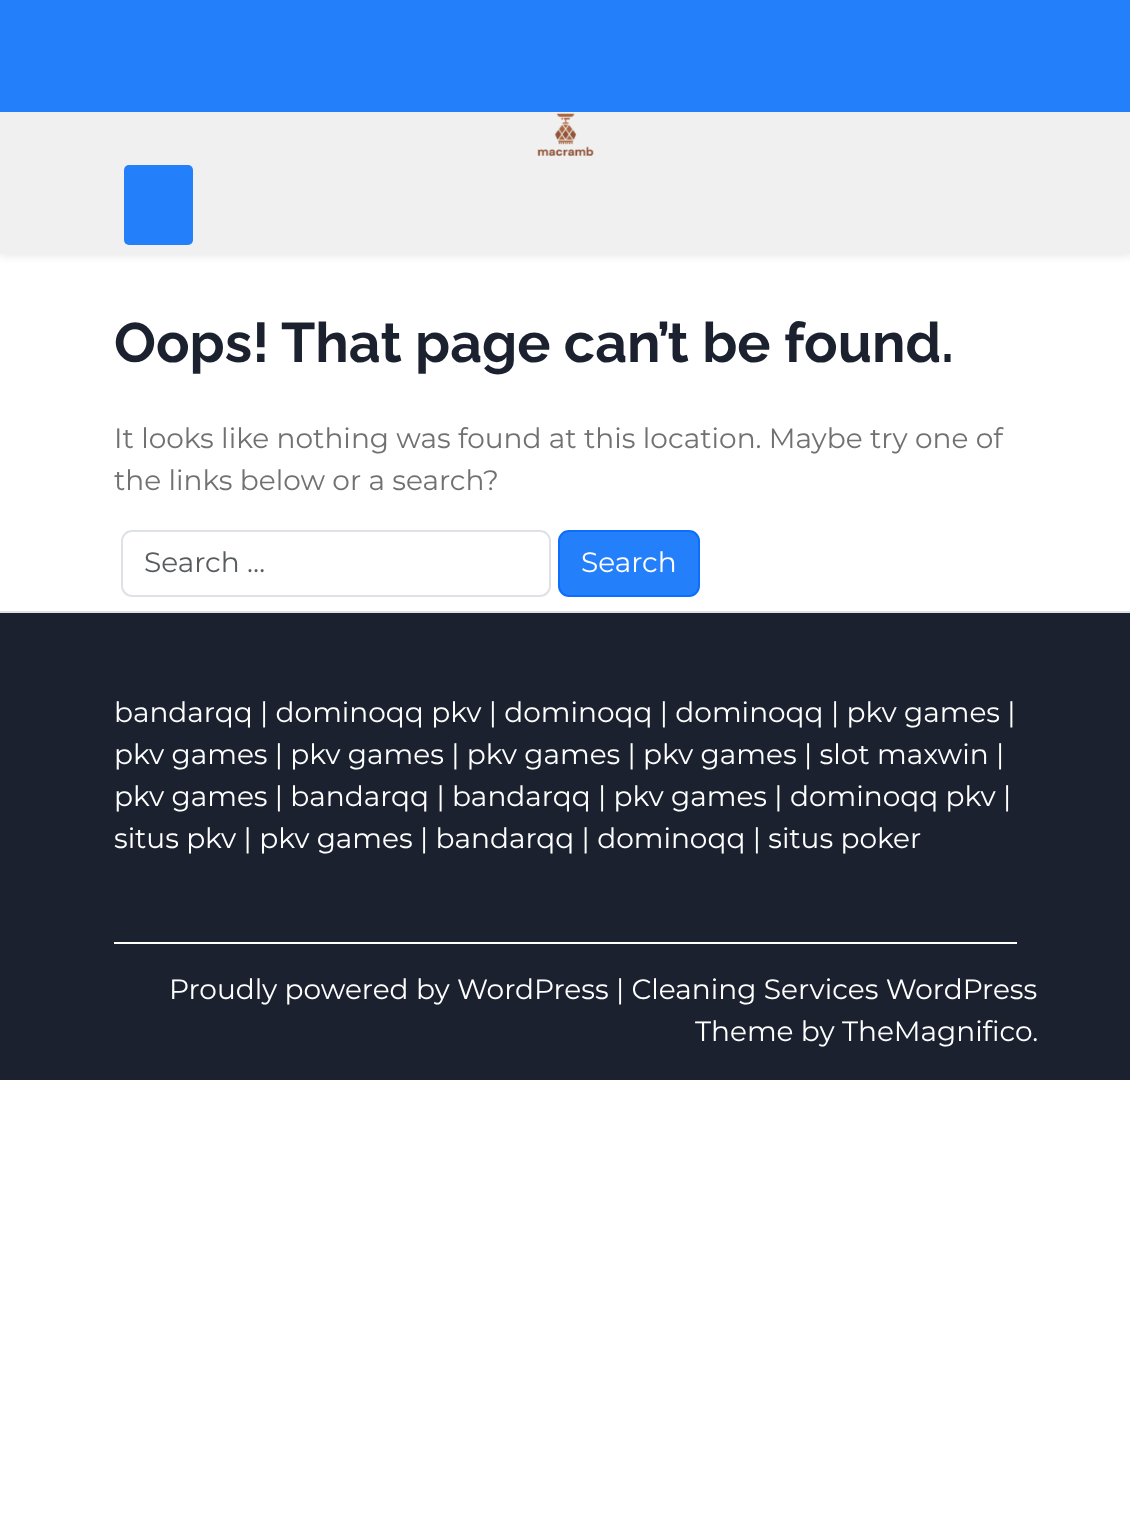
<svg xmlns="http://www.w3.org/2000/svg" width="1130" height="1519">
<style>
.a{font:bold 55.5px Raleway;fill:#1b212f}
.b{font:28px Montserrat;fill:#717171}
.c{font:28px Montserrat;fill:#595c5f}
.d{font:28px Montserrat;fill:#fff}
</style>
<rect width="100%" height="100%" fill="#fff"/>
<path fill="#00000012" filter="blur(3.5px)" d="M0 4h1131v253H0z"/>
<path fill="#f0f0f0" d="M0 112h1130v142H0z"/>
<path fill="#247ffb" d="M0 0h1130v112H0z"/>
<image href="1.png" x="537" y="113" width="57" height="43"/>
<rect fill="#247ffb" x="124" y="165" width="69" height="80" rx="5"/>
<rect fill="none" stroke="#dee2e6" stroke-width="2" x="122" y="531" width="428" height="65" rx="10"/>
<rect fill="#247ffb" stroke="#0d6efd" stroke-width="2" x="559" y="531" width="140" height="65" rx="10"/>
<path fill="#1b212f" d="M0 613h1130v467H0z"/>
<path fill="#dee2e6" d="M0 611h1130v2H0z"/>
<path fill="#fff" d="M114 942h903v2H114z"/>
<text class="a" x="114" y="362">Oops! That page can’t be found.</text>
<text class="b" x="114" y="448">It looks like nothing was found at this location. Maybe try one of</text>
<text class="b" x="114" y="490">the links below or a search?</text>
<text class="c" x="144" y="572">Search …</text>
<text class="d" x="581" y="572">Search</text>
<text class="d" x="114" y="722">bandarqq | dominoqq pkv | dominoqq | dominoqq | pkv games |</text>
<text class="d" x="114" y="764">pkv games | pkv games | pkv games | pkv games | slot maxwin |</text>
<text class="d" x="114" y="806">pkv games | bandarqq | bandarqq | pkv games | dominoqq pkv |</text>
<text class="d" x="114" y="848">situs pkv | pkv games | bandarqq | dominoqq | situs poker</text>
<text class="d" x="169" y="999">Proudly powered by WordPress | Cleaning Services WordPress</text>
<text class="d" x="695" y="1041">Theme by TheMagnifico.</text>
</svg>
